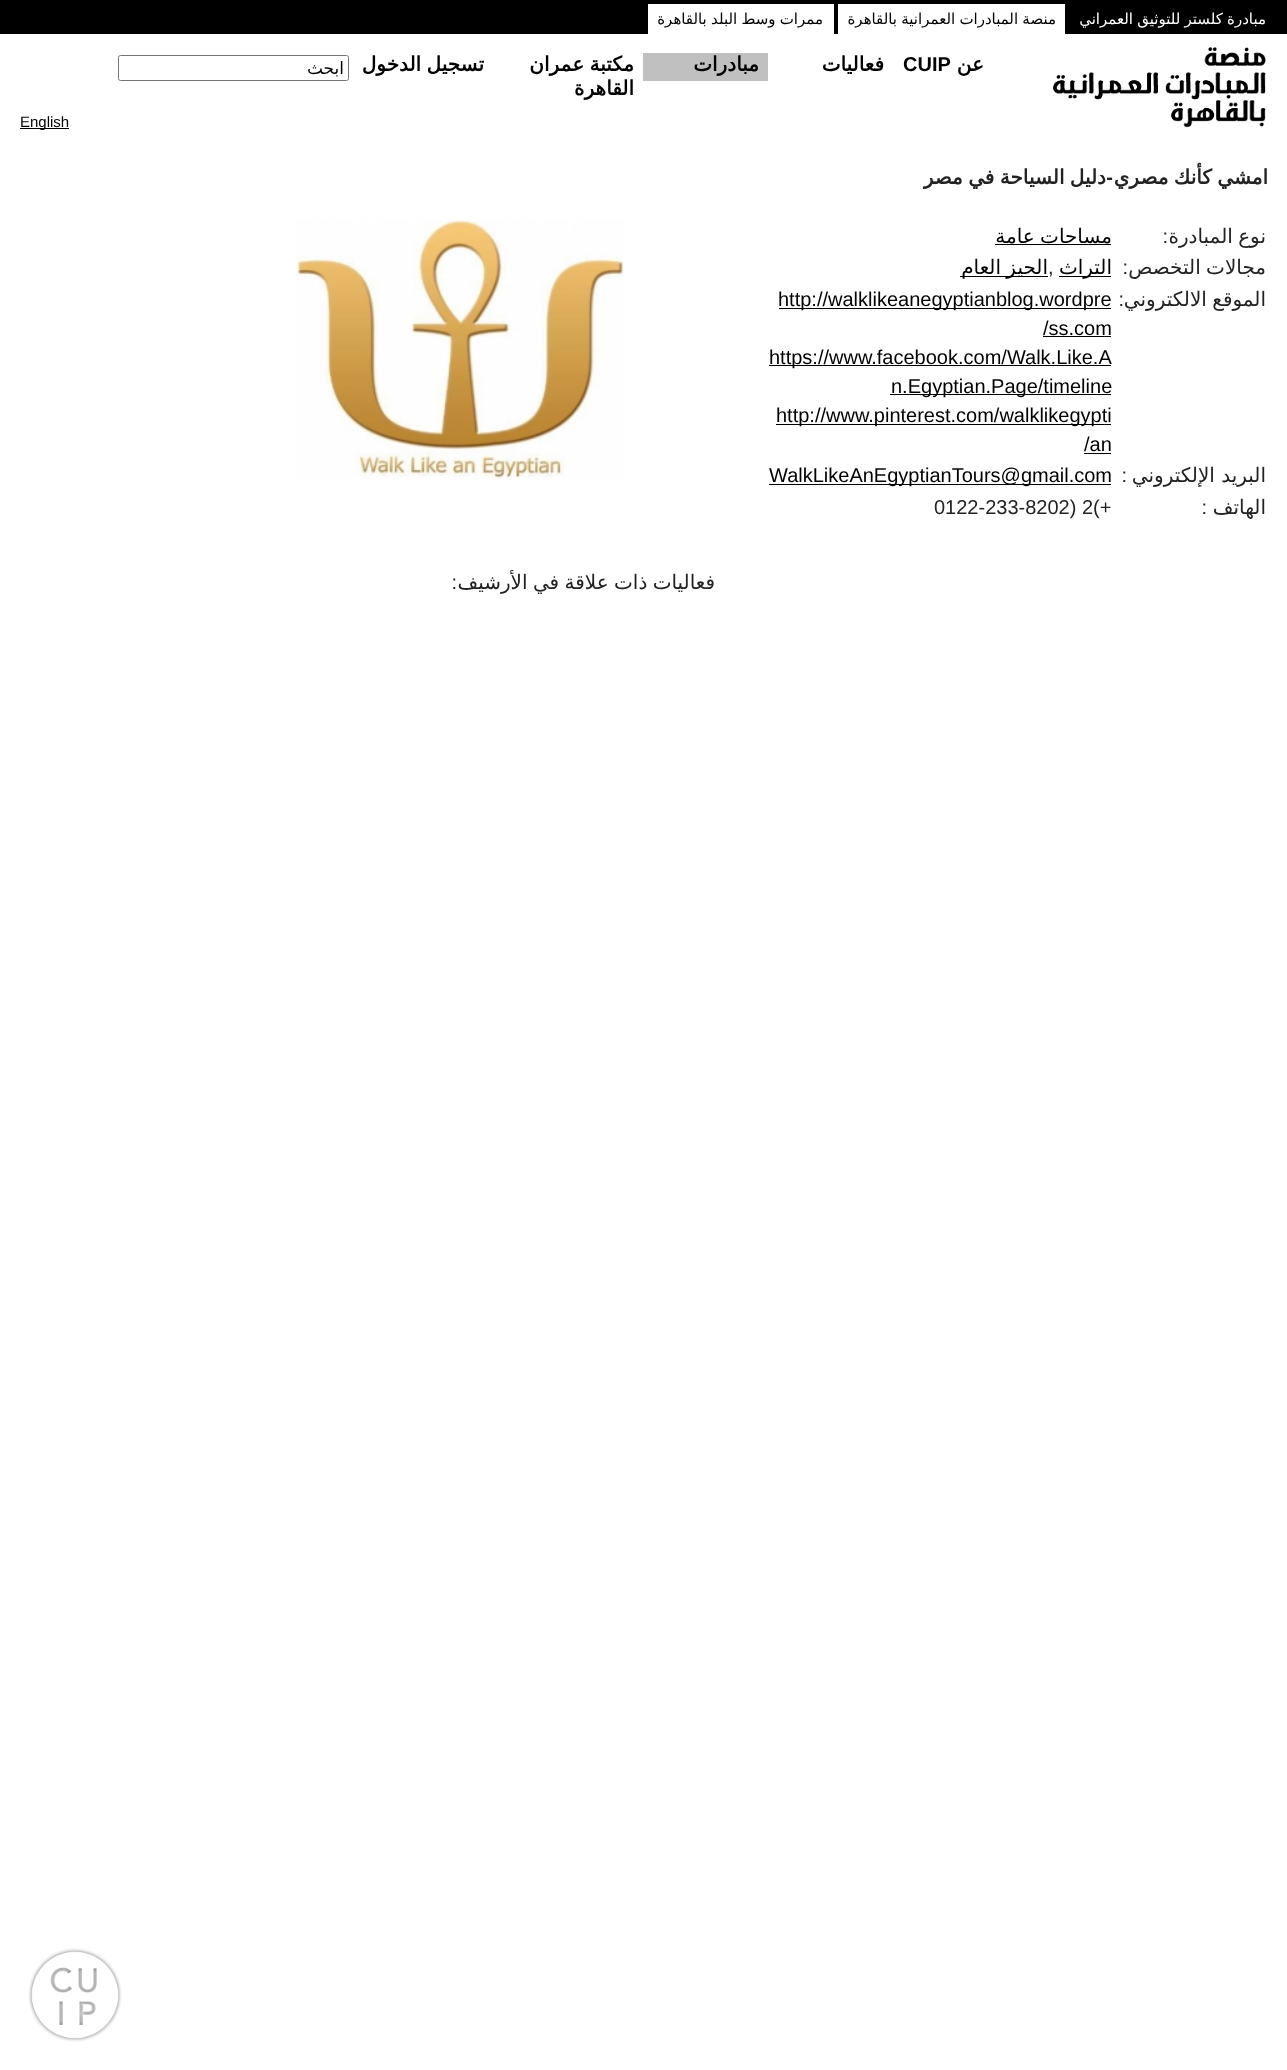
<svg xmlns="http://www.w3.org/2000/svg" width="1287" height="2070">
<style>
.a{font:15px DejaVu Sans;direction:rtl;fill:#fff}
.b{font:15px DejaVu Sans;direction:rtl;fill:#000}
.c{font:bold 20px DejaVu Sans;direction:rtl;fill:#000}
.d{font:bold 20px Liberation Sans;fill:#000}
.e{font:17px DejaVu Sans;direction:rtl;fill:#000}
.f{font:15px Liberation Sans;fill:#000}
.g{font:bold 20px DejaVu Sans;direction:rtl;fill:#222}
.h{font:bold 20px Liberation Sans;direction:rtl;fill:#222}
.i{font:20px DejaVu Sans;direction:rtl;fill:#222}
.j{font:20px Liberation Sans;direction:rtl;fill:#222}
.k{font:20px DejaVu Sans;direction:rtl;fill:#000}
.l{font:20px Liberation Sans;fill:#222}
.m{font:20px Liberation Sans;fill:#000}
</style>
<rect width="100%" height="100%" fill="#fff"/>
<path fill="#000" d="M0 0h1287v34H0z"/>
<path fill="#fff" d="M838 4h227v30H838z"/>
<path fill="#fff" d="M648 4h186v30H648z"/>
<image href="1.png" x="1053" y="47" width="213" height="81"/>
<path fill="#c0c0c0" d="M643 53h125v28H643z"/>
<rect fill="none" stroke="#767676" x="118.5" y="55.5" width="230" height="25" rx="2"/>
<path fill="#000" d="M20 128h49v1H20z"/>
<path fill="#000" d="M995 244h116v1H995z"/>
<path fill="#000" d="M1059 276h52v1H1059z"/>
<path fill="#000" d="M960 276h88v1H960z"/>
<path fill="#000" d="M779 308h332v1H779z"/>
<path fill="#000" d="M1043 336h68v1H1043z"/>
<path fill="#000" d="M769 365h342v1H769z"/>
<path fill="#000" d="M890 394h221v1H890z"/>
<path fill="#000" d="M776 424h335v1H776z"/>
<path fill="#000" d="M1084 453h27v1H1084z"/>
<path fill="#000" d="M769 484h342v1H769z"/>
<image href="2.png" x="296" y="219" width="329" height="260"/>
<image href="3.png" x="28" y="1948" width="94" height="94"/>
<text class="a" x="1266" y="24" word-spacing="-0.5">مبادرة كلستر للتوثيق العمراني</text>
<text class="b" x="1056" y="24" word-spacing="-0.5">منصة المبادرات العمرانية بالقاهرة</text>
<text class="b" x="823" y="24" word-spacing="-0.5">ممرات وسط البلد بالقاهرة</text>
<text class="c" x="984" y="71">عن</text>
<text class="d" x="903" y="71">CUIP</text>
<text class="c" x="884" y="71">فعاليات</text>
<text class="c" x="759" y="71">مبادرات</text>
<text class="c" x="634" y="71" word-spacing="-1">مكتبة عمران</text>
<text class="c" x="634" y="95">القاهرة</text>
<text class="c" x="484" y="71" word-spacing="-1">تسجيل الدخول</text>
<text class="e" x="344" y="74">ابحث</text>
<text class="f" x="20" y="127">English</text>
<text class="g" x="1268" y="184" word-spacing="-1">امشي كأنك مصري</text>
<text class="h" x="1113" y="184">-</text>
<text class="g" x="1106" y="184" word-spacing="-1">دليل السياحة في مصر</text>
<text class="i" x="1266" y="243" word-spacing="-1">نوع المبادرة</text>
<text class="j" x="1168" y="243">:</text>
<text class="k" x="1112" y="243" word-spacing="-1">مساحات عامة</text>
<text class="i" x="1266" y="274" word-spacing="-1">مجالات التخصص</text>
<text class="j" x="1128" y="274">:</text>
<text class="k" x="1112" y="274">التراث</text>
<text class="l" x="1048" y="274">,</text>
<text class="k" x="1048" y="274" word-spacing="-1">الحيز العام</text>
<text class="i" x="1266" y="306" word-spacing="-1">الموقع الالكتروني</text>
<text class="j" x="1124" y="306">:</text>
<text class="m" x="778" y="306">http://walklikeanegyptianblog.wordpre</text>
<text class="m" x="1043" y="335">/ss.com</text>
<text class="m" x="769" y="364">https://www.facebook.com/Walk.Like.A</text>
<text class="m" x="891" y="393">n.Egyptian.Page/timeline</text>
<text class="m" x="776" y="422">http://www.pinterest.com/walklikegypti</text>
<text class="m" x="1084" y="451">/an</text>
<text class="i" x="1266" y="482">البريد الإلكتروني</text>
<text class="j" x="1127" y="482">:</text>
<text class="m" x="769" y="482">WalkLikeAnEgyptianTours@gmail.com</text>
<text class="i" x="1266" y="514">الهاتف</text>
<text class="j" x="1207" y="514">:</text>
<text class="l" x="934" y="514">0122-233-8202) 2(+</text>
<text class="i" x="715" y="589" word-spacing="-1">فعاليات ذات علاقة في الأرشيف</text>
<text class="j" x="457" y="589">:</text>
</svg>
